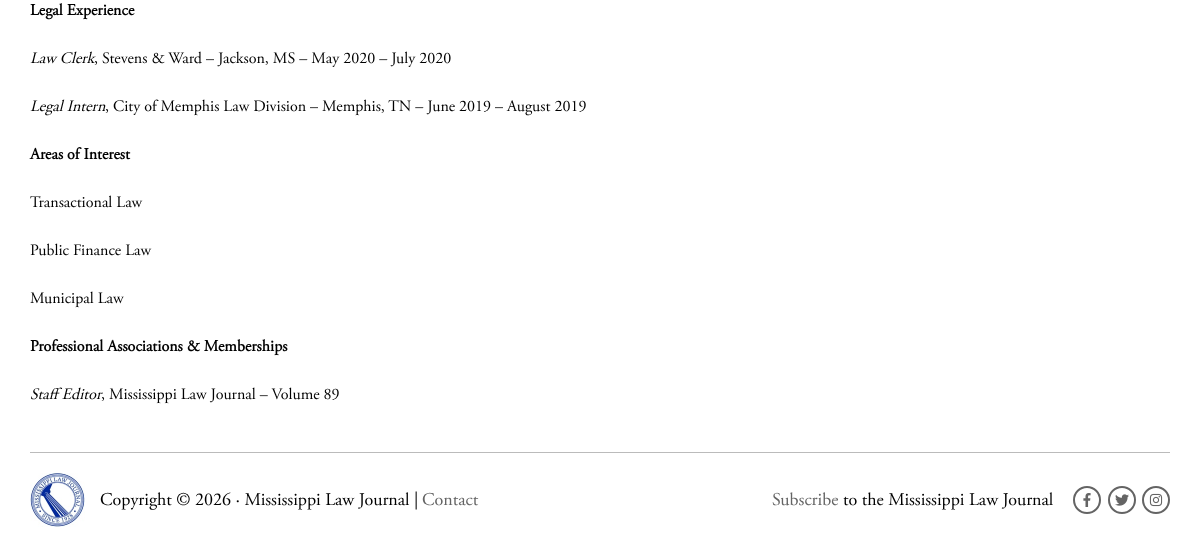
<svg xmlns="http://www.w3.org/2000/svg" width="1200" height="547">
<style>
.a{font:bold 16px Adobe Garamond;fill:#000}
.b{font:italic 16px Adobe Garamond;fill:#000}
.c{font:16px Adobe Garamond;fill:#000}
.d{font:18px Adobe Garamond;fill:#000}
.e{font:18px Adobe Garamond;fill:#646464}
</style>
<rect width="100%" height="100%" fill="#fff"/>
<path fill="#bbb" d="M30 452h1140v1H30z"/>
<image href="1.png" x="30" y="473" width="55" height="54"/>
<circle fill="none" stroke="#646464" stroke-width="2" cx="1087" cy="500" r="13"/>
<image href="2.png" x="1083" y="493" width="8" height="14"/>
<circle fill="none" stroke="#646464" stroke-width="2" cx="1122" cy="500" r="13"/>
<image href="3.png" x="1115" y="494" width="14" height="12"/>
<circle fill="none" stroke="#646464" stroke-width="2" cx="1156" cy="500" r="13"/>
<image href="4.png" x="1149" y="493" width="14" height="14"/>
<text class="a" x="30" y="15">Legal Experience</text>
<text class="b" x="30" y="63">Law Clerk</text>
<text class="c" x="94" y="63">, Stevens &amp; Ward – Jackson, MS – May 2020 – July 2020</text>
<text class="b" x="30" y="111">Legal Intern</text>
<text class="c" x="105" y="111">, City of Memphis Law Division – Memphis, TN – June 2019 – August 2019</text>
<text class="a" x="30" y="159">Areas of Interest</text>
<text class="c" x="30" y="207">Transactional Law</text>
<text class="c" x="30" y="255">Public Finance Law</text>
<text class="c" x="30" y="303">Municipal Law</text>
<text class="a" x="30" y="351">Professional Associations &amp; Memberships</text>
<text class="b" x="30" y="399">Staff Editor</text>
<text class="c" x="101" y="399">, Mississippi Law Journal – Volume 89</text>
<text class="d" x="100" y="505">Copyright © 2026 · Mississippi Law Journal |</text>
<text class="e" x="422" y="505">Contact</text>
<text class="e" x="772" y="505">Subscribe</text>
<text class="d" x="843" y="505">to the Mississippi Law Journal</text>
</svg>
